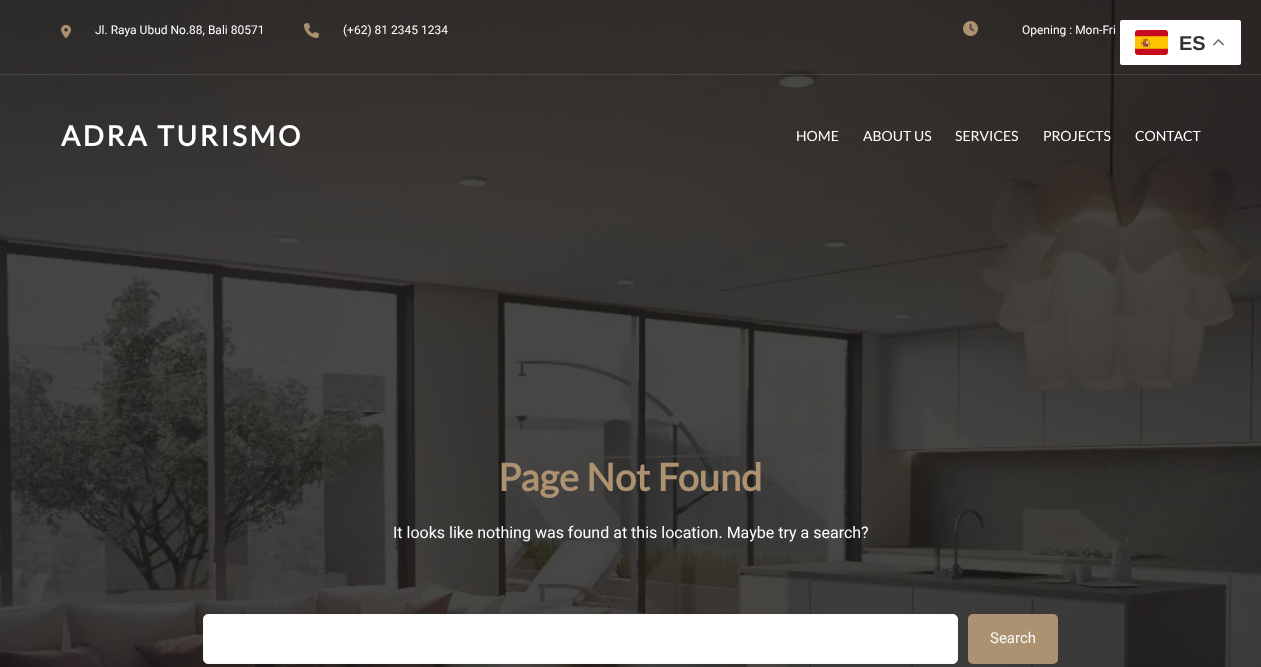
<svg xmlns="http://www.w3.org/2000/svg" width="1261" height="667">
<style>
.a{font:12px Roboto;fill:#fff}
.b{font:bold 28px Lato;letter-spacing:2.75px;fill:#fff}
.c{font:14px Lato;fill:#fff}
.d{font:bold 38px Lato;fill:#ad9271}
.e{font:16px Roboto;fill:#fff}
.f{font:15px Roboto;fill:#f8f8f8}
.g{font:bold 20px Liberation Sans;fill:#333}
</style>
<rect width="100%" height="100%" fill="#fff"/>
<image href="1.png" x="0" y="0" width="1261" height="667"/>
<image href="2.png" x="61" y="25" width="10" height="13"/>
<image href="3.png" x="304" y="23" width="15" height="15"/>
<image href="4.png" x="963" y="21" width="15" height="15"/>
<path fill="#66666666" d="M0 74h1261v1H0z"/>
<rect fill="#fff" stroke="#f8f8f8" x="203.5" y="614.5" width="754" height="49" rx="4.5"/>
<rect fill="#ad9271" x="968" y="614" width="90" height="50" rx="5"/>
<rect fill="#fff" x="1120" y="20" width="121" height="45" rx="2"/>
<image href="5.png" x="1135" y="30" width="33" height="25"/>
<image href="6.png" x="1213" y="39" width="11" height="7"/>
<text class="a" x="95" y="34">Jl. Raya Ubud No.88, Bali 80571</text>
<text class="a" x="343" y="34">(+62) 81 2345 1234</text>
<text class="a" x="1022" y="34">Opening : Mon-Fri</text>
<text class="b" x="61" y="146">ADRA TURISMO</text>
<text class="c" x="796" y="141">HOME</text>
<text class="c" x="863" y="141">ABOUT US</text>
<text class="c" x="955" y="141">SERVICES</text>
<text class="c" x="1043" y="141">PROJECTS</text>
<text class="c" x="1135" y="141">CONTACT</text>
<text class="d" x="498" y="491">Page Not Found</text>
<text class="e" x="393" y="538">It looks like nothing was found at this location. Maybe try a search?</text>
<text class="f" x="990" y="643">Search</text>
<text class="g" x="1179" y="50">ES</text>
</svg>
